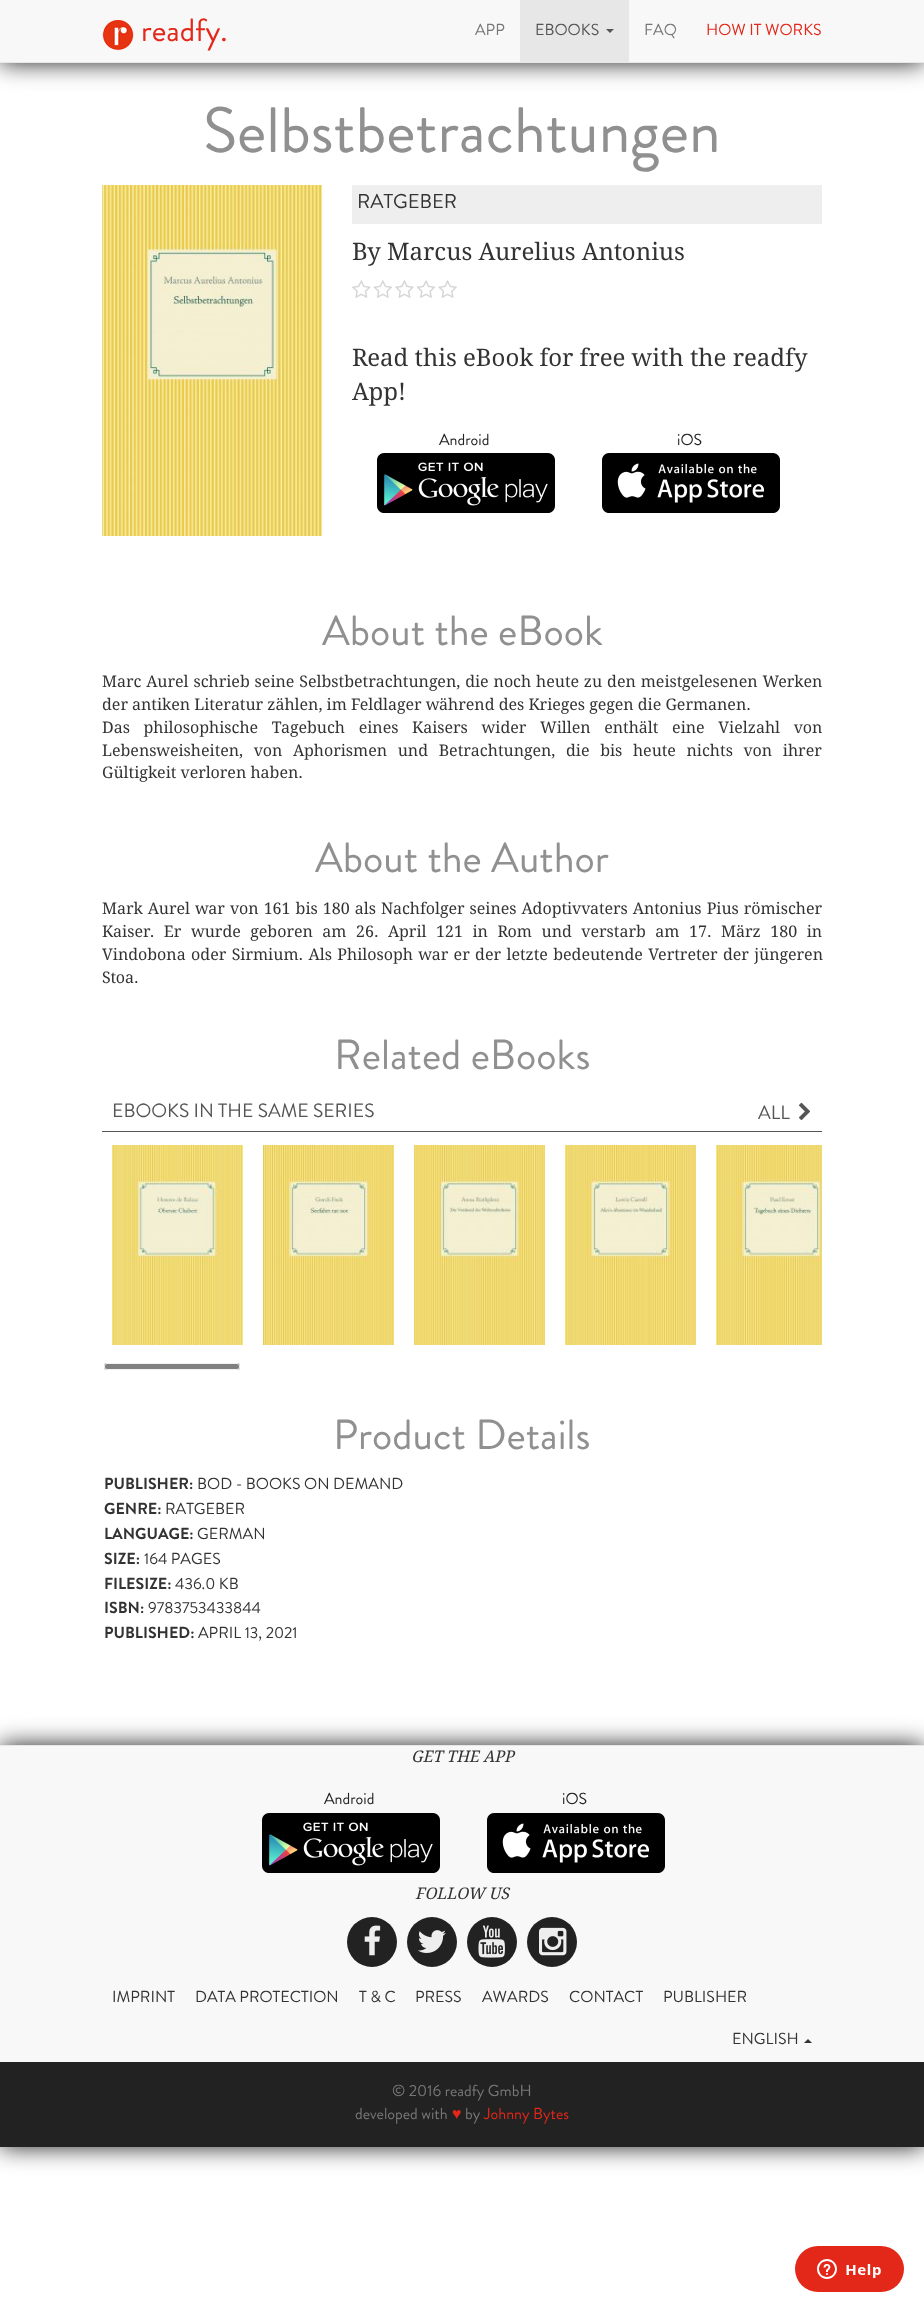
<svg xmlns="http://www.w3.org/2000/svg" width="924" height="2306">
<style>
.a{font:32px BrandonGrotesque;fill:#e32719}
.b{font:16px BrandonGrotesque;fill:#777}
.c{font:16px BrandonGrotesque;fill:#555}
.d{font:16px BrandonGrotesque;fill:#e32719}
.e{font:64px BrandonGrotesque;fill:#909090}
.f{font:20px BrandonGrotesque;fill:#333}
.g{font:24px Droid Serif;fill:#333}
.h{font:16px BrandonGrotesque;fill:#222}
.i{font:42px BrandonGrotesque;fill:#909090}
.j{font:16px Droid Serif;fill:#333}
.k{font:19.25px BrandonGrotesque;fill:#555}
.l{font:bold 16px BrandonGrotesque;fill:#333}
.m{font:16px BrandonGrotesque;fill:#333}
.n{font:italic 16px Droid Serif;fill:#333}
.o{font:16px Liberation Sans;fill:#e32719}
</style>
<rect width="100%" height="100%" fill="#fff"/>
<path fill="#222" filter="blur(12.5px)" d="M0 0h924v63H0z"/>
<path fill="#f8f8f8" d="M0 0h924v62H0z"/>
<path fill="#e7e7e7" d="M0 62h924v1H0z"/>
<image href="1.png" x="102" y="20" width="32" height="31"/>
<path fill="#e7e7e7" d="M520 0h109v62H520z"/>
<path fill="#555" d="M606 29h8l-4 4z"/>
<image href="2.png" x="102" y="185" width="220" height="351"/>
<path fill="#eee" d="M352 185h470v39H352z"/>
<image href="3.png" x="352" y="280" width="105" height="18"/>
<image href="4.png" x="377" y="453" width="178" height="60"/>
<image href="5.png" x="602" y="453" width="178" height="60"/>
<image href="6.png" x="799" y="1102" width="11" height="18"/>
<path fill="#555" d="M102 1131h720v1H102z"/>
<image href="7.png" x="112" y="1145" width="131" height="200"/>
<image href="8.png" x="263" y="1145" width="131" height="200"/>
<image href="9.png" x="414" y="1145" width="131" height="200"/>
<image href="10.png" x="565" y="1145" width="131" height="200"/>
<image href="11.png" x="716" y="1145" width="106" height="200"/>
<rect fill="#808080" x="104" y="1363" width="136" height="7" rx="3"/>
<rect fill="none" stroke="#ffffffe6" x="104.5" y="1363.5" width="135" height="6" rx="2.5"/>
<path fill="#222" filter="blur(12.5px)" d="M0 1745h924v402H0z"/>
<path fill="#f8f8f8" d="M0 1746h924v316H0z"/>
<path fill="#e7e7e7" d="M0 1745h924v1H0z"/>
<image href="12.png" x="262" y="1813" width="178" height="60"/>
<image href="13.png" x="487" y="1813" width="178" height="60"/>
<circle fill="#222" cx="372" cy="1942" r="25"/>
<image href="14.png" x="364" y="1925" width="17" height="31"/>
<circle fill="#222" cx="432" cy="1942" r="25"/>
<image href="15.png" x="418" y="1930" width="28" height="23"/>
<circle fill="#222" cx="492" cy="1942" r="25"/>
<image href="16.png" x="478" y="1925" width="27" height="33"/>
<circle fill="#222" cx="552" cy="1942" r="25"/>
<image href="17.png" x="539" y="1927" width="28" height="29"/>
<path fill="#333" d="M812 2043h-8l4-4z"/>
<path fill="#222" d="M0 2062h924v85H0z"/>
<image href="18.png" x="795" y="2246" width="109" height="46"/>
<text class="a" x="141" y="41">readfy.</text>
<text class="b" x="475" y="35">APP</text>
<text class="c" x="535" y="35">EBOOKS</text>
<text class="b" x="644" y="35">FAQ</text>
<text class="d" x="706" y="35">HOW IT WORKS</text>
<text class="e" x="203" y="152">Selbstbetrachtungen</text>
<text class="f" x="357" y="208">RATGEBER</text>
<text class="g" x="352" y="260">By Marcus Aurelius Antonius</text>
<text class="g" x="352" y="366">Read this eBook for free with the readfy</text>
<text class="g" x="352" y="400">App!</text>
<text class="h" x="439" y="445">Android</text>
<text class="h" x="677" y="445">iOS</text>
<text class="i" x="322" y="645">About the eBook</text>
<text class="j" x="102" y="687" word-spacing="0.75">Marc Aurel schrieb seine Selbstbetrachtungen, die noch heute zu den meistgelesenen Werken</text>
<text class="j" x="102" y="710">der antiken Literatur zählen, im Feldlager während des Krieges gegen die Germanen.</text>
<text class="j" x="102" y="733" word-spacing="9.5">Das philosophische Tagebuch eines Kaisers wider Willen enthält eine Vielzahl von</text>
<text class="j" x="102" y="756" word-spacing="6.5">Lebensweisheiten, von Aphorismen und Betrachtungen, die bis heute nichts von ihrer</text>
<text class="j" x="102" y="778">Gültigkeit verloren haben.</text>
<text class="i" x="315" y="872">About the Author</text>
<text class="j" x="102" y="914" word-spacing="0.9">Mark Aurel war von 161 bis 180 als Nachfolger seines Adoptivvaters Antonius Pius römischer</text>
<text class="j" x="102" y="937" word-spacing="5.4">Kaiser. Er wurde geboren am 26. April 121 in Rom und verstarb am 17. März 180 in</text>
<text class="j" x="102" y="960" word-spacing="1.25">Vindobona oder Sirmium. Als Philosoph war er der letzte bedeutende Vertreter der jüngeren</text>
<text class="j" x="102" y="983">Stoa.</text>
<text class="i" x="334" y="1069">Related eBooks</text>
<text class="k" x="112" y="1117">EBOOKS IN THE SAME SERIES</text>
<text class="k" x="758" y="1119">ALL</text>
<text class="i" x="333" y="1449">Product Details</text>
<text class="l" x="104" y="1489">PUBLISHER:</text>
<text class="m" x="197" y="1489">BOD - BOOKS ON DEMAND</text>
<text class="l" x="104" y="1514">GENRE:</text>
<text class="m" x="165" y="1514">RATGEBER</text>
<text class="l" x="104" y="1539">LANGUAGE:</text>
<text class="m" x="197" y="1539">GERMAN</text>
<text class="l" x="104" y="1564">SIZE:</text>
<text class="m" x="144" y="1564">164 PAGES</text>
<text class="l" x="104" y="1589">FILESIZE:</text>
<text class="m" x="175" y="1589">436.0 KB</text>
<text class="l" x="104" y="1613">ISBN:</text>
<text class="m" x="148" y="1613">9783753433844</text>
<text class="l" x="104" y="1638">PUBLISHED:</text>
<text class="m" x="198" y="1638">APRIL 13, 2021</text>
<text class="n" x="411" y="1762">GET THE APP</text>
<text class="h" x="324" y="1804">Android</text>
<text class="h" x="562" y="1804">iOS</text>
<text class="n" x="415" y="1899">FOLLOW US</text>
<text class="m" x="112" y="2002">IMPRINT</text>
<text class="m" x="195" y="2002">DATA PROTECTION</text>
<text class="m" x="359" y="2002">T &amp; C</text>
<text class="m" x="415" y="2002">PRESS</text>
<text class="m" x="482" y="2002">AWARDS</text>
<text class="m" x="569" y="2002">CONTACT</text>
<text class="m" x="663" y="2002">PUBLISHER</text>
<text class="m" x="732" y="2044">ENGLISH</text>
<text class="b" x="392" y="2096">© 2016 readfy GmbH</text>
<text class="b" x="355" y="2119">developed with</text>
<text class="o" x="452" y="2119">♥</text>
<text class="b" x="465" y="2119">by</text>
<text class="d" x="484" y="2119">Johnny Bytes</text>
</svg>
